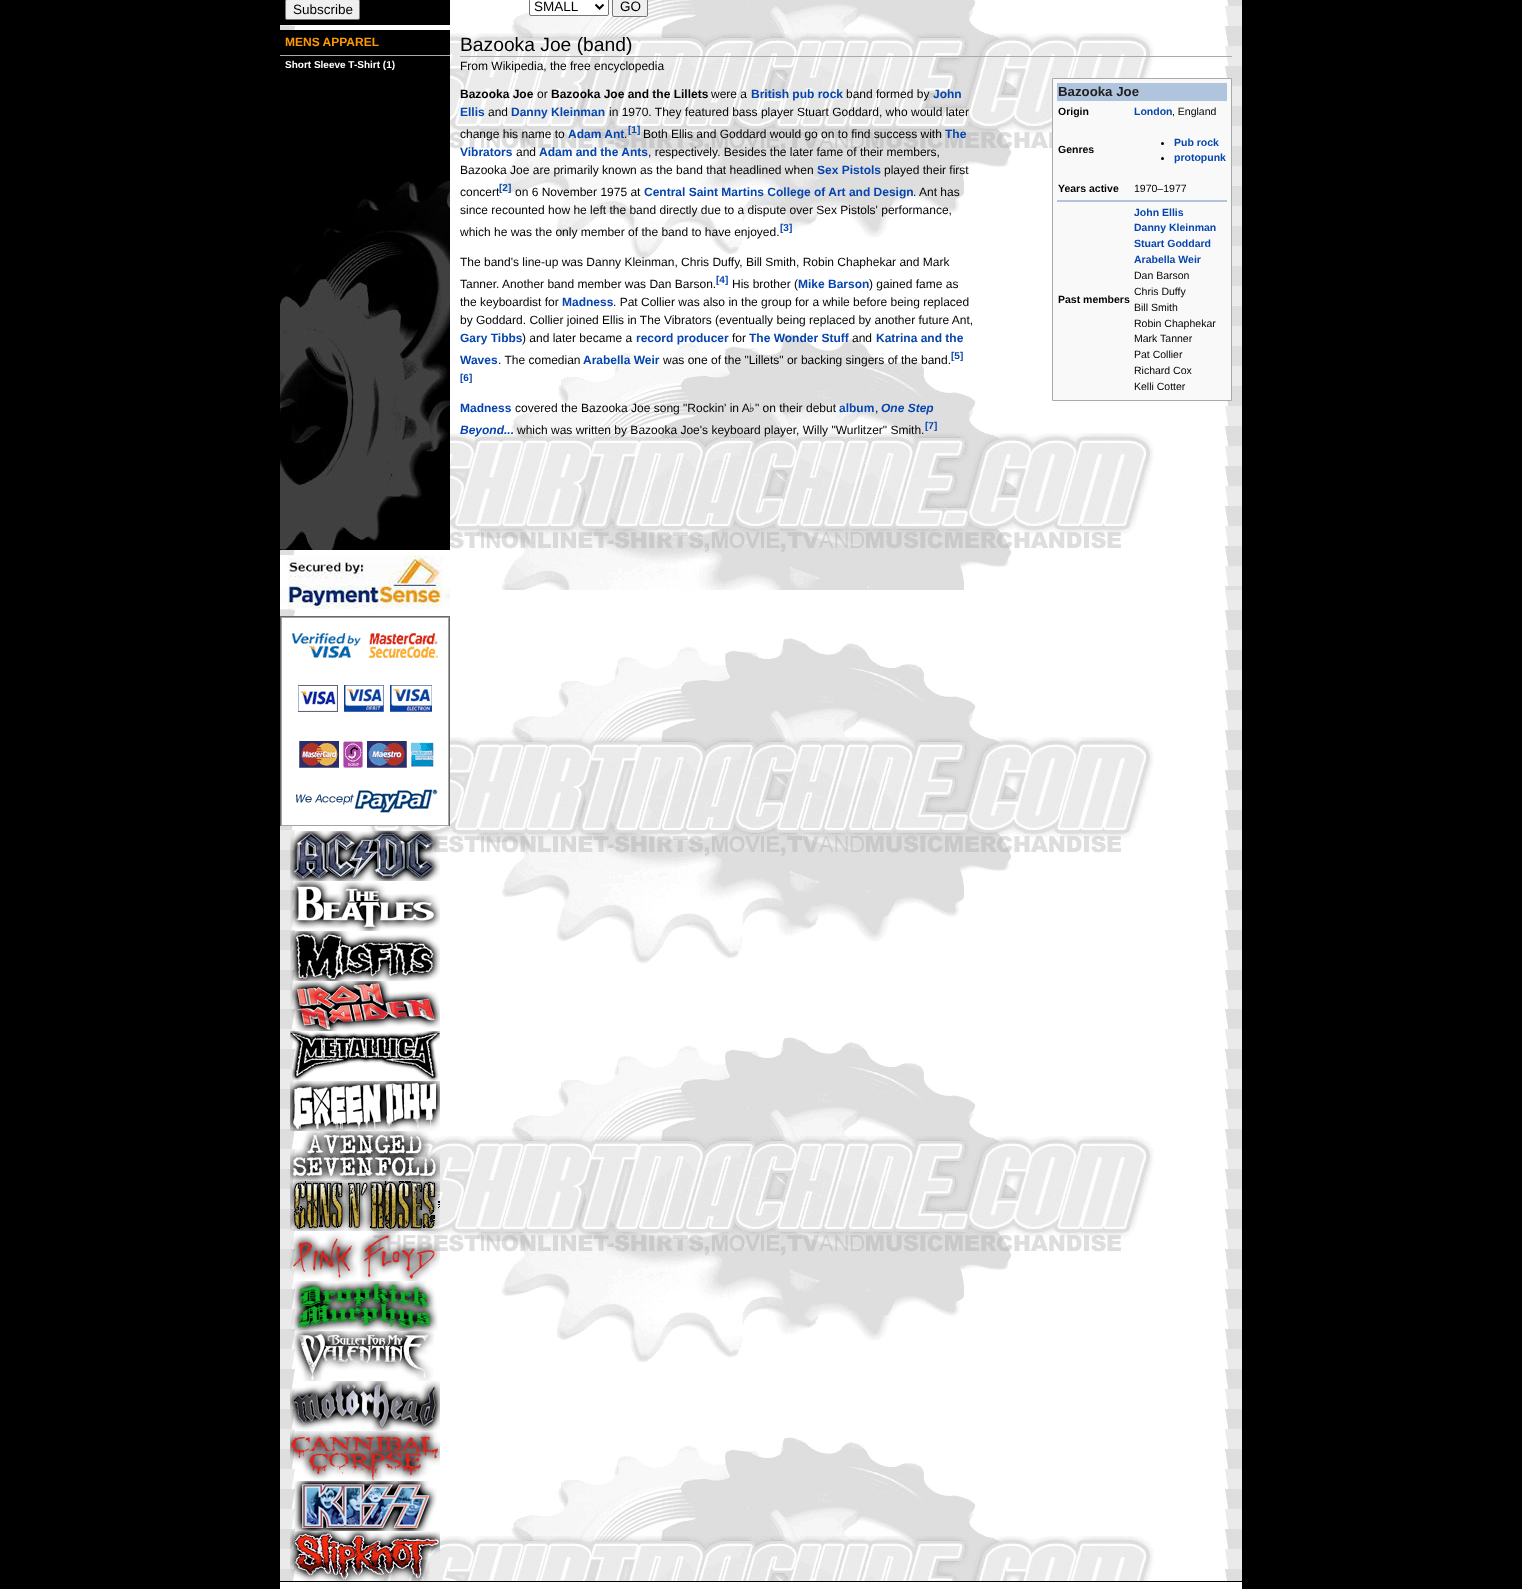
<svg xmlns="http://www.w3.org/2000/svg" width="1522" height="1589">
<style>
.a{font:13.5px Liberation Sans;fill:#000}
.b{font:bold 12px Liberation Sans;fill:#f90}
.c{font:bold 10px Liberation Sans;fill:#fff}
.d{font:19.25px Liberation Sans;fill:#000}
.e{font:12px Liberation Sans;fill:#000}
.f{font:bold 12px Liberation Sans;fill:#000}
.g{font:bold 12px Liberation Sans;fill:#0645ad}
.h{font:bold 10px Liberation Sans;fill:#0645ad}
.i{font:12px DejaVu Sans;fill:#000}
.j{font:italic bold 12px Liberation Sans;fill:#0645ad}
.k{font:bold 13.25px Liberation Sans;fill:#202122}
.l{font:bold 10.5px Liberation Sans;fill:#000}
.m{font:bold 10.5px Liberation Sans;fill:#0645ad}
.n{font:10.5px Liberation Sans;fill:#000}
</style>
<rect width="100%" height="100%" fill="#000"/>
<path fill="#fff" d="M292 0h936v1581H292z"/>
<image href="1.png" x="280" y="0" width="962" height="1581"/>
<path fill="#000" d="M280 0h170v25H280z"/>
<rect fill="#efefef" stroke="#767676" x="285.5" y="-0.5" width="74" height="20" rx="1.5"/>
<path fill="#000" d="M280 30h170v150H280z"/>
<image href="2.png" x="280" y="180" width="170" height="370"/>
<path fill="#aaa" d="M280 55h170v1H280z"/>
<image href="3.png" x="280" y="555" width="170" height="54"/>
<path fill="#fff" d="M280 616h170v210H280z"/>
<image href="4.png" x="280" y="616" width="170" height="210"/>
<image href="5.png" x="290" y="831" width="150" height="50"/>
<image href="6.png" x="290" y="881" width="150" height="50"/>
<image href="7.png" x="290" y="931" width="150" height="50"/>
<image href="8.png" x="290" y="981" width="150" height="50"/>
<image href="9.png" x="290" y="1031" width="150" height="50"/>
<image href="10.png" x="290" y="1081" width="150" height="50"/>
<image href="11.png" x="290" y="1131" width="150" height="50"/>
<image href="12.png" x="290" y="1181" width="150" height="50"/>
<image href="13.png" x="290" y="1231" width="150" height="50"/>
<image href="14.png" x="291" y="1281" width="147" height="50"/>
<image href="15.png" x="293" y="1331" width="141" height="50"/>
<image href="16.png" x="290" y="1381" width="150" height="50"/>
<image href="17.png" x="290" y="1431" width="150" height="50"/>
<image href="18.png" x="294" y="1481" width="143" height="50"/>
<image href="19.png" x="290" y="1531" width="150" height="50"/>
<rect fill="#fff" stroke="#767676" x="529.5" y="-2.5" width="79" height="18" rx="1.5"/>
<path fill="none" stroke="#000" stroke-width="2" d="M595.5 4.5l4 4l4-4"/>
<rect fill="#efefef" stroke="#767676" x="612.5" y="-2.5" width="35" height="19" rx="1.5"/>
<path fill="#aaa" d="M460 56h772v1H460z"/>
<path fill="#f9f9f9" stroke="#aaa" d="M1052.5 78.5h179v322H1052.5z"/>
<path fill="#b0c4de" d="M1057 83h170v18H1057z"/>
<circle fill="#000" cx="1162.5" cy="143.5" r="1.5"/>
<circle fill="#000" cx="1162.5" cy="158.5" r="1.5"/>
<path fill="#b0c4de" d="M1057 200h170v2H1057z"/>
<path fill="#fff" d="M280 1582h962v7H280z"/>
<text class="a" x="293" y="14">Subscribe</text>
<text class="b" x="285" y="46">MENS APPAREL</text>
<text class="c" x="285" y="68">Short Sleeve T-Shirt (1)</text>
<text class="a" x="534" y="11">SMALL</text>
<text class="a" x="620" y="11">GO</text>
<text class="d" x="460" y="51">Bazooka Joe (band)</text>
<text class="e" x="460" y="70">From Wikipedia, the free encyclopedia</text>
<text class="f" x="460" y="98">Bazooka Joe</text>
<text class="e" x="537" y="98">or</text>
<text class="f" x="551" y="98">Bazooka Joe and the Lillets</text>
<text class="e" x="711" y="98">were a</text>
<text class="g" x="751" y="98">British pub rock</text>
<text class="e" x="846" y="98">band formed by</text>
<text class="g" x="933" y="98">John</text>
<text class="g" x="460" y="116">Ellis</text>
<text class="e" x="488" y="116">and</text>
<text class="g" x="511" y="116">Danny Kleinman</text>
<text class="e" x="609" y="116">in 1970. They featured bass player Stuart Goddard, who would later</text>
<text class="e" x="460" y="138">change his name to</text>
<text class="g" x="568" y="138">Adam Ant</text>
<text class="e" x="624" y="138">.</text>
<text class="h" x="628" y="133">[1]</text>
<text class="e" x="643" y="138">Both Ellis and Goddard would go on to find success with</text>
<text class="g" x="945" y="138">The</text>
<text class="g" x="460" y="156">Vibrators</text>
<text class="e" x="516" y="156">and</text>
<text class="g" x="539" y="156">Adam and the Ants</text>
<text class="e" x="648" y="156">, respectively. Besides the later fame of their members,</text>
<text class="e" x="460" y="174">Bazooka Joe are primarily known as the band that headlined when</text>
<text class="g" x="817" y="174">Sex Pistols</text>
<text class="e" x="884" y="174">played their first</text>
<text class="e" x="460" y="196">concert</text>
<text class="h" x="499" y="191">[2]</text>
<text class="e" x="515" y="196">on 6 November 1975 at</text>
<text class="g" x="644" y="196">Central Saint Martins College of Art and Design</text>
<text class="e" x="913" y="196">. Ant has</text>
<text class="e" x="460" y="214">since recounted how he left the band directly due to a dispute over Sex Pistols' performance,</text>
<text class="e" x="460" y="236">which he was the only member of the band to have enjoyed.</text>
<text class="h" x="780" y="231">[3]</text>
<text class="e" x="460" y="266">The band's line-up was Danny Kleinman, Chris Duffy, Bill Smith, Robin Chaphekar and Mark</text>
<text class="e" x="460" y="288">Tanner. Another band member was Dan Barson.</text>
<text class="h" x="716" y="283">[4]</text>
<text class="e" x="732" y="288">His brother (</text>
<text class="g" x="798" y="288">Mike Barson</text>
<text class="e" x="869" y="288">) gained fame as</text>
<text class="e" x="460" y="306">the keyboardist for</text>
<text class="g" x="562" y="306">Madness</text>
<text class="e" x="613" y="306">. Pat Collier was also in the group for a while before being replaced</text>
<text class="e" x="460" y="324">by Goddard. Collier joined Ellis in The Vibrators (eventually being replaced by another future Ant,</text>
<text class="g" x="460" y="342">Gary Tibbs</text>
<text class="e" x="522" y="342">) and later became a</text>
<text class="g" x="636" y="342">record producer</text>
<text class="e" x="732" y="342">for</text>
<text class="g" x="749" y="342">The Wonder Stuff</text>
<text class="e" x="852" y="342">and</text>
<text class="g" x="876" y="342">Katrina and the</text>
<text class="g" x="460" y="364">Waves</text>
<text class="e" x="498" y="364">. The comedian</text>
<text class="g" x="583" y="364">Arabella Weir</text>
<text class="e" x="663" y="364">was one of the "Lillets" or backing singers of the band.</text>
<text class="h" x="951" y="359">[5]</text>
<text class="h" x="460" y="381">[6]</text>
<text class="g" x="460" y="412">Madness</text>
<text class="e" x="515" y="412">covered the Bazooka Joe song "Rockin' in A</text>
<text class="i" x="749" y="412">♭</text>
<text class="e" x="755" y="412">" on their debut</text>
<text class="g" x="839" y="412">album</text>
<text class="e" x="875" y="412">,</text>
<text class="j" x="881" y="412">One Step</text>
<text class="j" x="460" y="434">Beyond...</text>
<text class="e" x="517" y="434">which was written by Bazooka Joe's keyboard player, Willy "Wurlitzer" Smith.</text>
<text class="h" x="925" y="429">[7]</text>
<text class="k" x="1058" y="96">Bazooka Joe</text>
<text class="l" x="1058" y="115">Origin</text>
<text class="m" x="1134" y="115">London</text>
<text class="n" x="1172" y="115">, England</text>
<text class="l" x="1058" y="153">Genres</text>
<text class="m" x="1174" y="146">Pub rock</text>
<text class="m" x="1174" y="161">protopunk</text>
<text class="l" x="1058" y="192">Years active</text>
<text class="n" x="1134" y="192">1970–1977</text>
<text class="l" x="1058" y="303">Past members</text>
<text class="m" x="1134" y="216">John Ellis</text>
<text class="m" x="1134" y="231">Danny Kleinman</text>
<text class="m" x="1134" y="247">Stuart Goddard</text>
<text class="m" x="1134" y="263">Arabella Weir</text>
<text class="n" x="1134" y="279">Dan Barson</text>
<text class="n" x="1134" y="295">Chris Duffy</text>
<text class="n" x="1134" y="311">Bill Smith</text>
<text class="n" x="1134" y="327">Robin Chaphekar</text>
<text class="n" x="1134" y="342">Mark Tanner</text>
<text class="n" x="1134" y="358">Pat Collier</text>
<text class="n" x="1134" y="374">Richard Cox</text>
<text class="n" x="1134" y="390">Kelli Cotter</text>
</svg>
